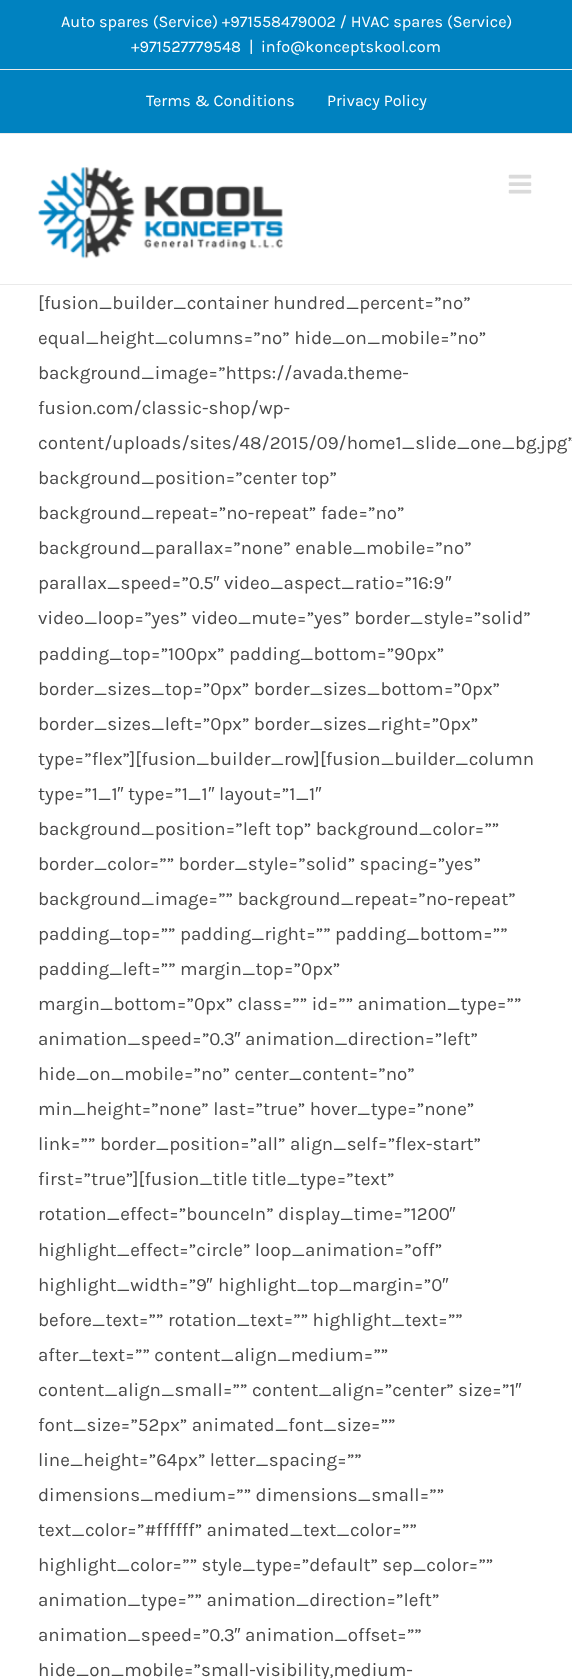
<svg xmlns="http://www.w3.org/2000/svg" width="572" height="1679">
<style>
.a{font:16.25px Karla;fill:#fff}
.b{font:18.75px Karla;fill:#494949}
.c{font:18.75px Liberation Sans;fill:#494949}
</style>
<rect width="100%" height="100%" fill="#fff"/>
<path fill="#0082c0" d="M0 0h572v133H0z"/>
<path fill="#eaeaea" d="M0 133h572v1H0z"/>
<path fill="#eaeaea" d="M0 69h572v1H0z"/>
<path fill="#eaeaea" d="M0 284h572v1H0z"/>
<image href="1.png" x="38" y="167" width="245" height="92"/>
<image href="2.png" x="508" y="174" width="24" height="20"/>
<text class="a" x="61" y="27">Auto spares (Service) +971558479002 / HVAC spares (Service)</text>
<text class="a" x="131" y="52">+971527779548</text>
<text class="a" x="249" y="52">|</text>
<text class="a" x="261" y="52">info@konceptskool.com</text>
<text class="a" x="146" y="106">Terms &amp; Conditions</text>
<text class="a" x="327" y="106">Privacy Policy</text>
<text class="b" x="38" y="309">[fusion_builder_container hundred_percent=”no”</text>
<text class="b" x="38" y="344">equal_height_columns=”no” hide_on_mobile=”no”</text>
<text class="b" x="38" y="379">background_image=”https://avada.theme-</text>
<text class="b" x="38" y="414">fusion.com/classic-shop/wp-</text>
<text class="b" x="38" y="449">content/uploads/sites/48/2015/09/home1_slide_one_bg.jpg”</text>
<text class="b" x="38" y="484">background_position=”center top”</text>
<text class="b" x="38" y="519">background_repeat=”no-repeat” fade=”no”</text>
<text class="b" x="38" y="554">background_parallax=”none” enable_mobile=”no”</text>
<text class="b" x="38" y="589">parallax_speed=”0.5</text>
<text class="c" x="213" y="589">″</text>
<text class="b" x="224" y="589">video_aspect_ratio=”16:9</text>
<text class="c" x="445" y="589">″</text>
<text class="b" x="38" y="624">video_loop=”yes” video_mute=”yes” border_style=”solid”</text>
<text class="b" x="38" y="660">padding_top=”100px” padding_bottom=”90px”</text>
<text class="b" x="38" y="695">border_sizes_top=”0px” border_sizes_bottom=”0px”</text>
<text class="b" x="38" y="730">border_sizes_left=”0px” border_sizes_right=”0px”</text>
<text class="b" x="38" y="765">type=”flex”][fusion_builder_row][fusion_builder_column</text>
<text class="b" x="38" y="800">type=”1_1</text>
<text class="c" x="117" y="800">″</text>
<text class="b" x="128" y="800">type=”1_1</text>
<text class="c" x="208" y="800">″</text>
<text class="b" x="219" y="800">layout=”1_1</text>
<text class="c" x="315" y="800">″</text>
<text class="b" x="38" y="835">background_position=”left top” background_color=””</text>
<text class="b" x="38" y="870">border_color=”” border_style=”solid” spacing=”yes”</text>
<text class="b" x="38" y="905">background_image=”” background_repeat=”no-repeat”</text>
<text class="b" x="38" y="940">padding_top=”” padding_right=”” padding_bottom=””</text>
<text class="b" x="38" y="975">padding_left=”” margin_top=”0px”</text>
<text class="b" x="38" y="1010">margin_bottom=”0px” class=”” id=”” animation_type=””</text>
<text class="b" x="38" y="1045">animation_speed=”0.3</text>
<text class="c" x="234" y="1045">″</text>
<text class="b" x="245" y="1045">animation_direction=”left”</text>
<text class="b" x="38" y="1080">hide_on_mobile=”no” center_content=”no”</text>
<text class="b" x="38" y="1115">min_height=”none” last=”true” hover_type=”none”</text>
<text class="b" x="38" y="1150">link=”” border_position=”all” align_self=”flex-start”</text>
<text class="b" x="38" y="1185">first=”true”][fusion_title title_type=”text”</text>
<text class="b" x="38" y="1220">rotation_effect=”bounceIn” display_time=”1200</text>
<text class="c" x="449" y="1220">″</text>
<text class="b" x="38" y="1256">highlight_effect=”circle” loop_animation=”off”</text>
<text class="b" x="38" y="1291">highlight_width=”9</text>
<text class="c" x="206" y="1291">″</text>
<text class="b" x="218" y="1291">highlight_top_margin=”0</text>
<text class="c" x="442" y="1291">″</text>
<text class="b" x="38" y="1326">before_text=”” rotation_text=”” highlight_text=””</text>
<text class="b" x="38" y="1361">after_text=”” content_align_medium=””</text>
<text class="b" x="38" y="1396">content_align_small=”” content_align=”center” size=”1</text>
<text class="c" x="515" y="1396">″</text>
<text class="b" x="38" y="1431">font_size=”52px” animated_font_size=””</text>
<text class="b" x="38" y="1466">line_height=”64px” letter_spacing=””</text>
<text class="b" x="38" y="1501">dimensions_medium=”” dimensions_small=””</text>
<text class="b" x="38" y="1536">text_color=”#ffffff” animated_text_color=””</text>
<text class="b" x="38" y="1571">highlight_color=”” style_type=”default” sep_color=””</text>
<text class="b" x="38" y="1606">animation_type=”” animation_direction=”left”</text>
<text class="b" x="38" y="1641">animation_speed=”0.3</text>
<text class="c" x="234" y="1641">″</text>
<text class="b" x="245" y="1641">animation_offset=””</text>
<text class="b" x="38" y="1676">hide_on_mobile=”small-visibility,medium-</text>
</svg>
